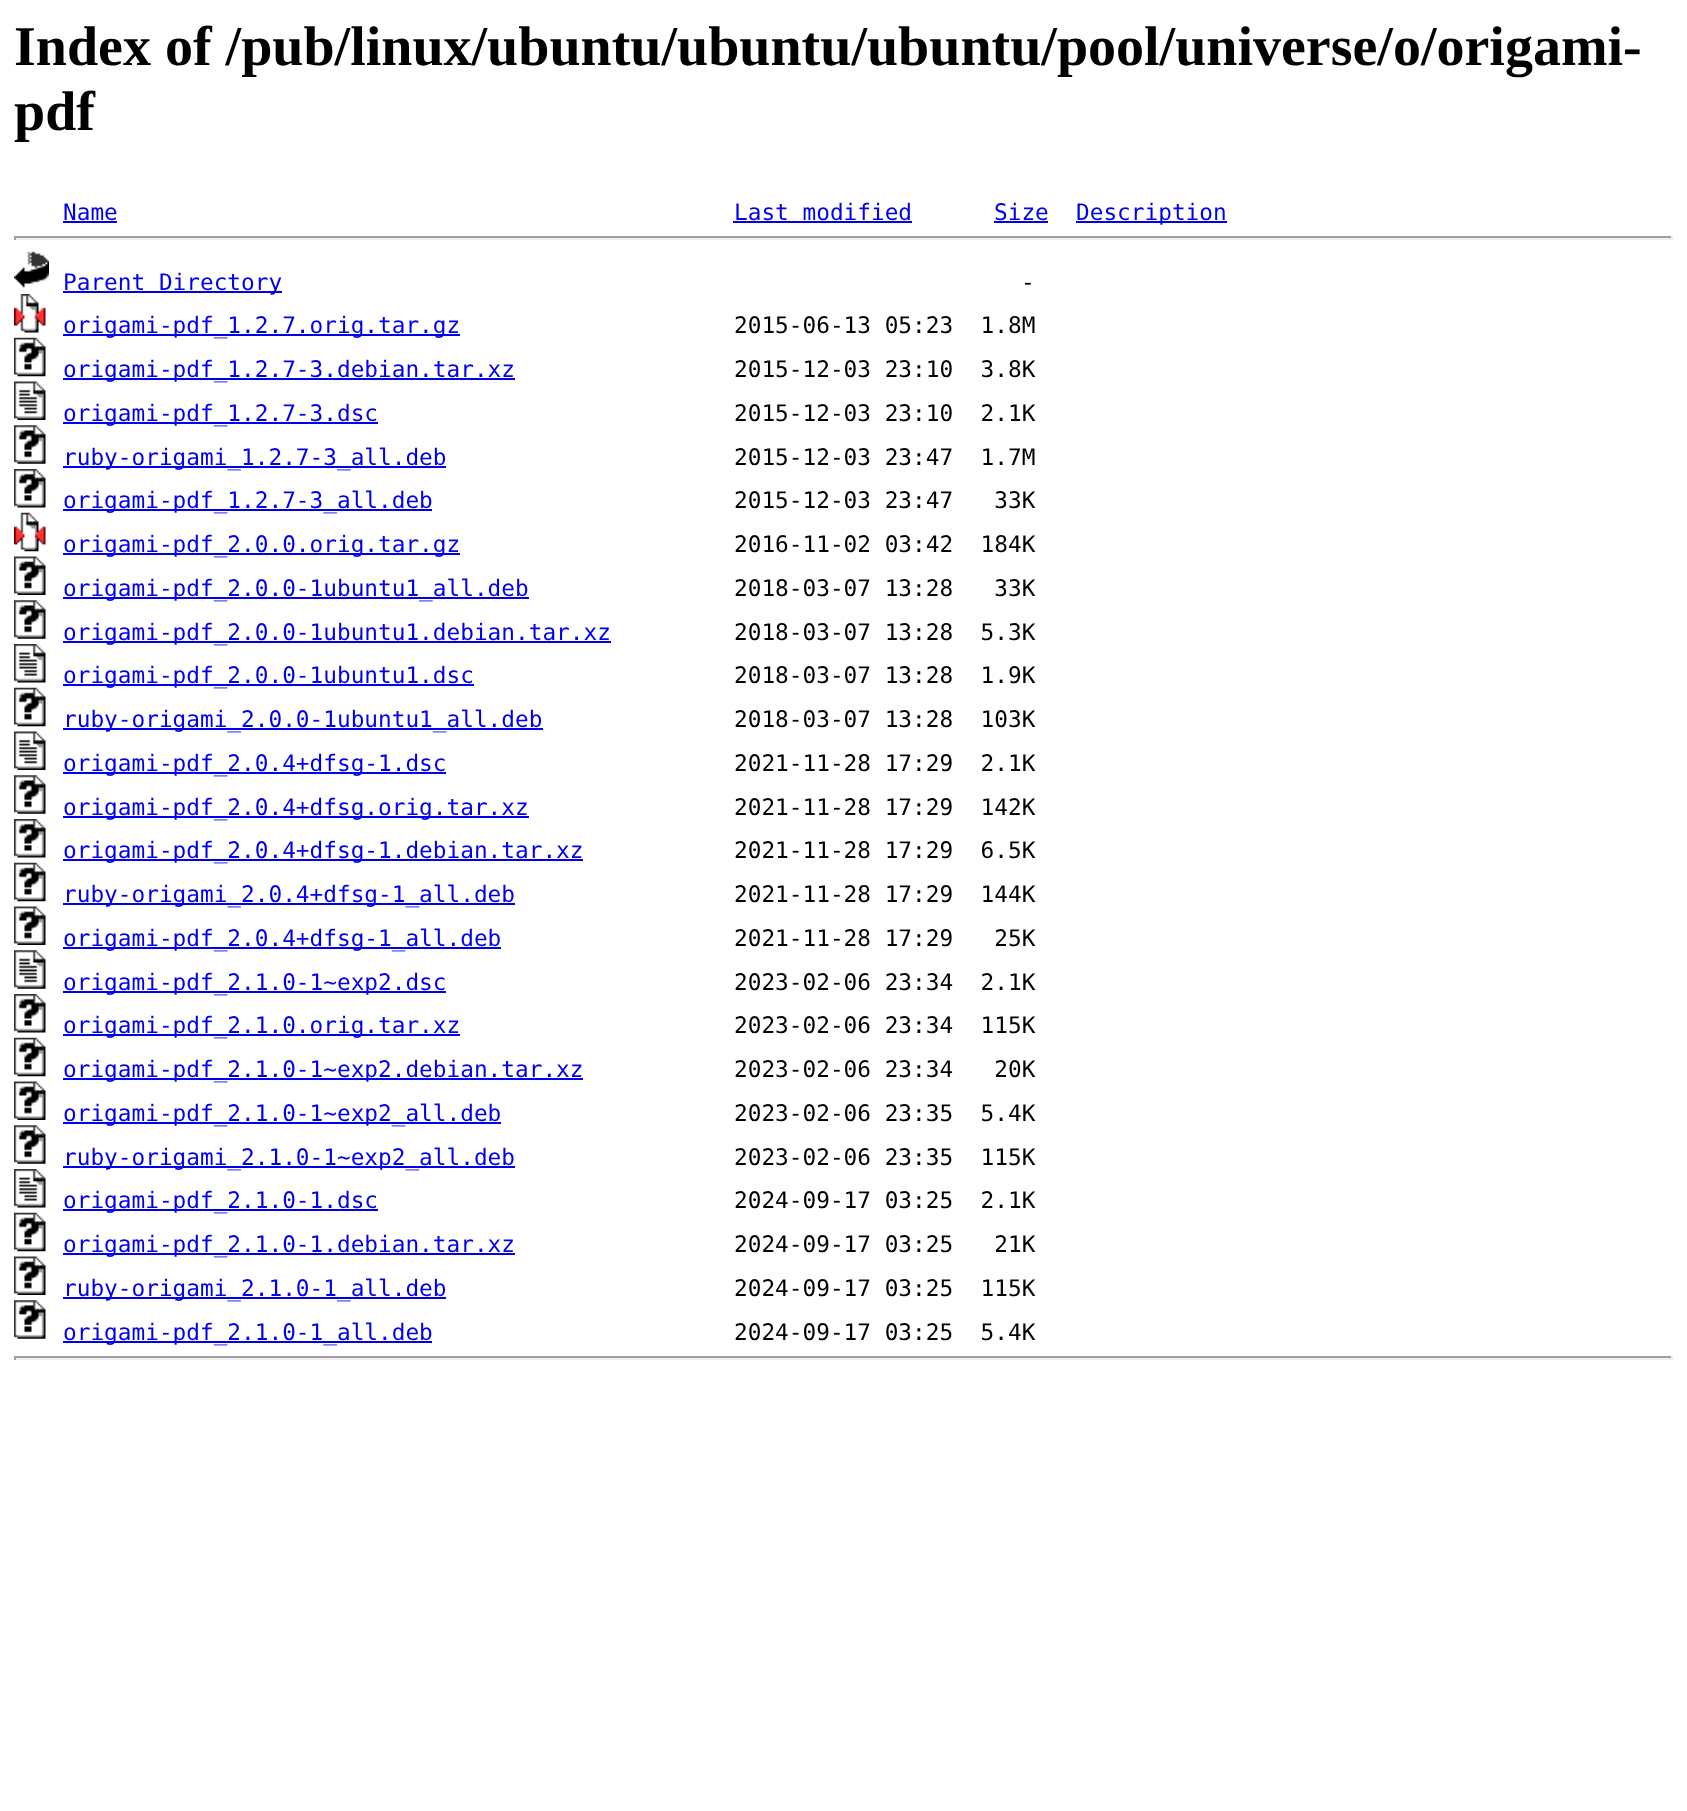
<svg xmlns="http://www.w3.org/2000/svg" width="1687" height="1811">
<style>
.a{font:bold 56px Liberation Serif;fill:#000}
.b{font:22.75px DejaVu Sans Mono;fill:#00e}
.c{font:22.75px DejaVu Sans Mono;fill:#000}
</style>
<rect width="100%" height="100%" fill="#fff"/>
<path fill="#00e" d="M63 221h54v2H63z"/>
<path fill="#00e" d="M733 221h179v2H733z"/>
<path fill="#00e" d="M994 221h54v2H994z"/>
<path fill="#00e" d="M1076 221h151v2H1076z"/>
<path fill="#9f9f9f" d="M14 236h1659v2H14z"/>
<path fill="#eee" d="M1671 236h2v4H1671z"/>
<path fill="#eee" d="M14 238h1659v2H14z"/>
<path fill="#9f9f9f" d="M14 236h2v4H14z"/>
<image href="1.png" x="14" y="251" width="35" height="37"/>
<path fill="#00e" d="M63 291h219v2H63z"/>
<image href="2.png" x="14" y="294" width="32" height="39"/>
<path fill="#00e" d="M63 334h397v2H63z"/>
<image href="3.png" x="14" y="337" width="32" height="40"/>
<path fill="#00e" d="M63 378h452v2H63z"/>
<image href="4.png" x="14" y="381" width="32" height="39"/>
<path fill="#00e" d="M63 422h315v2H63z"/>
<image href="5.png" x="14" y="425" width="32" height="39"/>
<path fill="#00e" d="M63 466h383v2H63z"/>
<image href="6.png" x="14" y="469" width="32" height="39"/>
<path fill="#00e" d="M63 509h369v2H63z"/>
<image href="7.png" x="14" y="512" width="32" height="40"/>
<path fill="#00e" d="M63 553h397v2H63z"/>
<image href="8.png" x="14" y="556" width="32" height="39"/>
<path fill="#00e" d="M63 597h466v2H63z"/>
<image href="5.png" x="14" y="600" width="32" height="39"/>
<path fill="#00e" d="M63 641h548v2H63z"/>
<image href="9.png" x="14" y="644" width="32" height="39"/>
<path fill="#00e" d="M63 684h411v2H63z"/>
<image href="3.png" x="14" y="687" width="32" height="40"/>
<path fill="#00e" d="M63 728h480v2H63z"/>
<image href="4.png" x="14" y="731" width="32" height="39"/>
<path fill="#00e" d="M63 772h383v2H63z"/>
<image href="5.png" x="14" y="775" width="32" height="39"/>
<path fill="#00e" d="M63 816h466v2H63z"/>
<image href="6.png" x="14" y="819" width="32" height="39"/>
<path fill="#00e" d="M63 859h520v2H63z"/>
<image href="3.png" x="14" y="862" width="32" height="40"/>
<path fill="#00e" d="M63 903h452v2H63z"/>
<image href="8.png" x="14" y="906" width="32" height="39"/>
<path fill="#00e" d="M63 947h438v2H63z"/>
<image href="10.png" x="14" y="950" width="32" height="39"/>
<path fill="#00e" d="M63 991h383v2H63z"/>
<image href="6.png" x="14" y="994" width="32" height="39"/>
<path fill="#00e" d="M63 1034h397v2H63z"/>
<image href="3.png" x="14" y="1037" width="32" height="40"/>
<path fill="#00e" d="M63 1078h520v2H63z"/>
<image href="8.png" x="14" y="1081" width="32" height="39"/>
<path fill="#00e" d="M63 1122h438v2H63z"/>
<image href="5.png" x="14" y="1125" width="32" height="39"/>
<path fill="#00e" d="M63 1166h452v2H63z"/>
<image href="9.png" x="14" y="1169" width="32" height="39"/>
<path fill="#00e" d="M63 1209h315v2H63z"/>
<image href="3.png" x="14" y="1212" width="32" height="40"/>
<path fill="#00e" d="M63 1253h452v2H63z"/>
<image href="8.png" x="14" y="1256" width="32" height="39"/>
<path fill="#00e" d="M63 1297h383v2H63z"/>
<image href="5.png" x="14" y="1300" width="32" height="39"/>
<path fill="#00e" d="M63 1341h369v2H63z"/>
<path fill="#9f9f9f" d="M14 1356h1659v2H14z"/>
<path fill="#eee" d="M1671 1356h2v4H1671z"/>
<path fill="#eee" d="M14 1358h1659v2H14z"/>
<path fill="#9f9f9f" d="M14 1356h2v4H14z"/>
<text class="a" x="14" y="65">Index of /pub/linux/ubuntu/ubuntu/ubuntu/pool/universe/o/origami-</text>
<text class="a" x="14" y="130">pdf</text>
<text class="b" x="63" y="220">Name</text>
<text class="b" x="734" y="220">Last modified</text>
<text class="b" x="994" y="220">Size</text>
<text class="b" x="1076" y="220">Description</text>
<text class="b" x="63" y="290">Parent Directory</text>
<text class="c" x="1021" y="290">-</text>
<text class="b" x="63" y="333">origami-pdf_1.2.7.orig.tar.gz</text>
<text class="c" xml:space="preserve" x="734" y="333">2015-06-13 05:23  1.8M</text>
<text class="b" x="63" y="377">origami-pdf_1.2.7-3.debian.tar.xz</text>
<text class="c" xml:space="preserve" x="734" y="377">2015-12-03 23:10  3.8K</text>
<text class="b" x="63" y="421">origami-pdf_1.2.7-3.dsc</text>
<text class="c" xml:space="preserve" x="734" y="421">2015-12-03 23:10  2.1K</text>
<text class="b" x="63" y="465">ruby-origami_1.2.7-3_all.deb</text>
<text class="c" xml:space="preserve" x="734" y="465">2015-12-03 23:47  1.7M</text>
<text class="b" x="63" y="508">origami-pdf_1.2.7-3_all.deb</text>
<text class="c" xml:space="preserve" x="734" y="508">2015-12-03 23:47   33K</text>
<text class="b" x="63" y="552">origami-pdf_2.0.0.orig.tar.gz</text>
<text class="c" xml:space="preserve" x="734" y="552">2016-11-02 03:42  184K</text>
<text class="b" x="63" y="596">origami-pdf_2.0.0-1ubuntu1_all.deb</text>
<text class="c" xml:space="preserve" x="734" y="596">2018-03-07 13:28   33K</text>
<text class="b" x="63" y="640">origami-pdf_2.0.0-1ubuntu1.debian.tar.xz</text>
<text class="c" xml:space="preserve" x="734" y="640">2018-03-07 13:28  5.3K</text>
<text class="b" x="63" y="683">origami-pdf_2.0.0-1ubuntu1.dsc</text>
<text class="c" xml:space="preserve" x="734" y="683">2018-03-07 13:28  1.9K</text>
<text class="b" x="63" y="727">ruby-origami_2.0.0-1ubuntu1_all.deb</text>
<text class="c" xml:space="preserve" x="734" y="727">2018-03-07 13:28  103K</text>
<text class="b" x="63" y="771">origami-pdf_2.0.4+dfsg-1.dsc</text>
<text class="c" xml:space="preserve" x="734" y="771">2021-11-28 17:29  2.1K</text>
<text class="b" x="63" y="815">origami-pdf_2.0.4+dfsg.orig.tar.xz</text>
<text class="c" xml:space="preserve" x="734" y="815">2021-11-28 17:29  142K</text>
<text class="b" x="63" y="858">origami-pdf_2.0.4+dfsg-1.debian.tar.xz</text>
<text class="c" xml:space="preserve" x="734" y="858">2021-11-28 17:29  6.5K</text>
<text class="b" x="63" y="902">ruby-origami_2.0.4+dfsg-1_all.deb</text>
<text class="c" xml:space="preserve" x="734" y="902">2021-11-28 17:29  144K</text>
<text class="b" x="63" y="946">origami-pdf_2.0.4+dfsg-1_all.deb</text>
<text class="c" xml:space="preserve" x="734" y="946">2021-11-28 17:29   25K</text>
<text class="b" x="63" y="990">origami-pdf_2.1.0-1~exp2.dsc</text>
<text class="c" xml:space="preserve" x="734" y="990">2023-02-06 23:34  2.1K</text>
<text class="b" x="63" y="1033">origami-pdf_2.1.0.orig.tar.xz</text>
<text class="c" xml:space="preserve" x="734" y="1033">2023-02-06 23:34  115K</text>
<text class="b" x="63" y="1077">origami-pdf_2.1.0-1~exp2.debian.tar.xz</text>
<text class="c" xml:space="preserve" x="734" y="1077">2023-02-06 23:34   20K</text>
<text class="b" x="63" y="1121">origami-pdf_2.1.0-1~exp2_all.deb</text>
<text class="c" xml:space="preserve" x="734" y="1121">2023-02-06 23:35  5.4K</text>
<text class="b" x="63" y="1165">ruby-origami_2.1.0-1~exp2_all.deb</text>
<text class="c" xml:space="preserve" x="734" y="1165">2023-02-06 23:35  115K</text>
<text class="b" x="63" y="1208">origami-pdf_2.1.0-1.dsc</text>
<text class="c" xml:space="preserve" x="734" y="1208">2024-09-17 03:25  2.1K</text>
<text class="b" x="63" y="1252">origami-pdf_2.1.0-1.debian.tar.xz</text>
<text class="c" xml:space="preserve" x="734" y="1252">2024-09-17 03:25   21K</text>
<text class="b" x="63" y="1296">ruby-origami_2.1.0-1_all.deb</text>
<text class="c" xml:space="preserve" x="734" y="1296">2024-09-17 03:25  115K</text>
<text class="b" x="63" y="1340">origami-pdf_2.1.0-1_all.deb</text>
<text class="c" xml:space="preserve" x="734" y="1340">2024-09-17 03:25  5.4K</text>
</svg>
